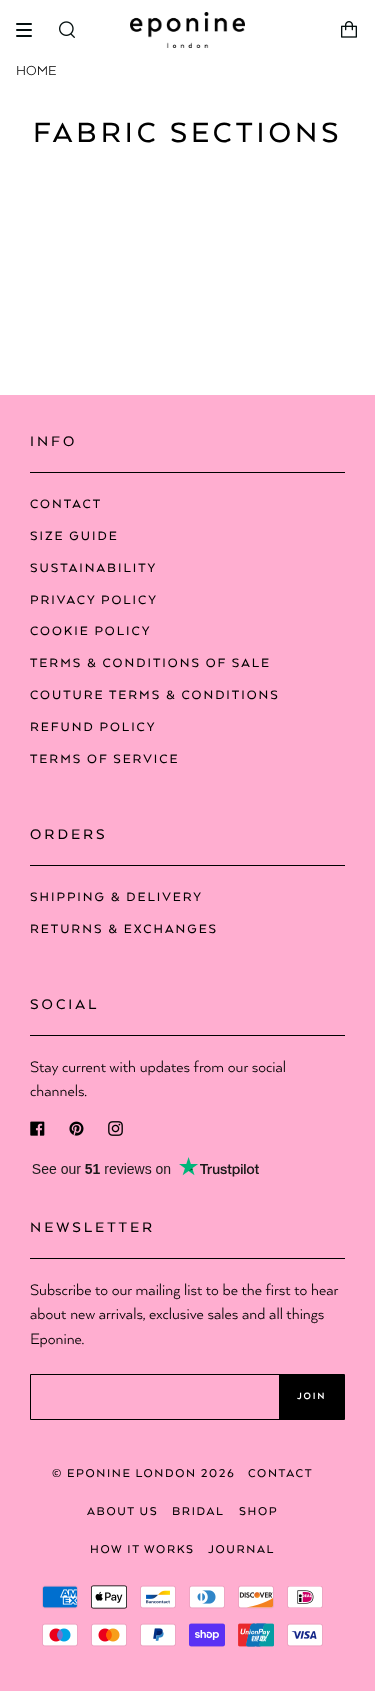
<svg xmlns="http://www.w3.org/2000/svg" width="375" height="1691">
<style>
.a{font:15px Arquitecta;fill:#000}
.b{font:500 32px Arquitecta;letter-spacing:4px;fill:#000}
.c{font:500 16px Arquitecta;letter-spacing:3px;fill:#000}
.d{font:500 14px Arquitecta;letter-spacing:2px;fill:#000}
.e{font:17.4px Arquitecta;fill:#000}
.f{font:bold 10px Arquitecta;letter-spacing:2px;fill:#fff}
.g{font:500 13px Arquitecta;letter-spacing:1.6px;fill:#000}
</style>
<rect width="100%" height="100%" fill="#fff"/>
<rect fill="#040f0f" x="16" y="23" width="16" height="2" rx="1"/>
<rect fill="#040f0f" x="16" y="29" width="16" height="2" rx="1"/>
<rect fill="#040f0f" x="16" y="35" width="16" height="2" rx="1"/>
<image href="1.png" x="59" y="21" width="16" height="17"/>
<image href="2.png" x="130" y="12" width="115" height="36"/>
<image href="3.png" x="341" y="21" width="16" height="17"/>
<path fill="#ffaed0" d="M0 395h375v1296H0z"/>
<path fill="#000" d="M30 472h315v1H30z"/>
<path fill="#000" d="M30 865h315v1H30z"/>
<path fill="#000" d="M30 1035h315v1H30z"/>
<image href="4.png" x="30" y="1121" width="15" height="15"/>
<image href="5.png" x="69" y="1121" width="15" height="15"/>
<image href="6.png" x="108" y="1121" width="15" height="15"/>
<image href="7.png" x="32" y="1157" width="227" height="20"/>
<path fill="#000" d="M30 1258h315v1H30z"/>
<path fill="none" stroke="#000" d="M30.5 1374.5h314v45H30.5z"/>
<path fill="#000" d="M279 1375h65v44H279z"/>
<image href="8.png" x="42" y="1585" width="36" height="24"/>
<image href="9.png" x="91" y="1585" width="36" height="24"/>
<image href="10.png" x="140" y="1585" width="36" height="24"/>
<image href="11.png" x="189" y="1585" width="36" height="24"/>
<image href="12.png" x="238" y="1585" width="36" height="24"/>
<image href="13.png" x="287" y="1586" width="36" height="22"/>
<image href="14.png" x="42" y="1623" width="36" height="24"/>
<image href="15.png" x="91" y="1623" width="36" height="24"/>
<image href="16.png" x="140" y="1623" width="36" height="24"/>
<image href="17.png" x="189" y="1623" width="36" height="24"/>
<image href="18.png" x="238" y="1623" width="36" height="24"/>
<image href="19.png" x="287" y="1623" width="36" height="24"/>
<text class="a" x="16" y="75">HOME</text>
<text class="b" x="33" y="142">FABRIC SECTIONS</text>
<text class="c" x="30" y="446">INFO</text>
<text class="d" x="30" y="508">CONTACT</text>
<text class="d" x="30" y="540">SIZE GUIDE</text>
<text class="d" x="30" y="572">SUSTAINABILITY</text>
<text class="d" x="30" y="604">PRIVACY POLICY</text>
<text class="d" x="30" y="635">COOKIE POLICY</text>
<text class="d" x="30" y="667">TERMS &amp; CONDITIONS OF SALE</text>
<text class="d" x="30" y="699">COUTURE TERMS &amp; CONDITIONS</text>
<text class="d" x="30" y="731">REFUND POLICY</text>
<text class="d" x="30" y="763">TERMS OF SERVICE</text>
<text class="c" x="30" y="839">ORDERS</text>
<text class="d" x="30" y="901">SHIPPING &amp; DELIVERY</text>
<text class="d" x="30" y="933">RETURNS &amp; EXCHANGES</text>
<text class="c" x="30" y="1009">SOCIAL</text>
<text class="e" x="30" y="1072">Stay current with updates from our social</text>
<text class="e" x="30" y="1096">channels.</text>
<text class="c" x="30" y="1232">NEWSLETTER</text>
<text class="e" x="30" y="1295">Subscribe to our mailing list to be the first to hear</text>
<text class="e" x="30" y="1319">about new arrivals, exclusive sales and all things</text>
<text class="e" x="30" y="1344">Eponine.</text>
<text class="f" x="297" y="1399">JOIN</text>
<text class="g" x="52" y="1477">© EPONINE LONDON 2026</text>
<text class="g" x="248" y="1477">CONTACT</text>
<text class="g" x="87" y="1515">ABOUT US</text>
<text class="g" x="172" y="1515">BRIDAL</text>
<text class="g" x="239" y="1515">SHOP</text>
<text class="g" x="90" y="1553">HOW IT WORKS</text>
<text class="g" x="208" y="1553">JOURNAL</text>
</svg>
